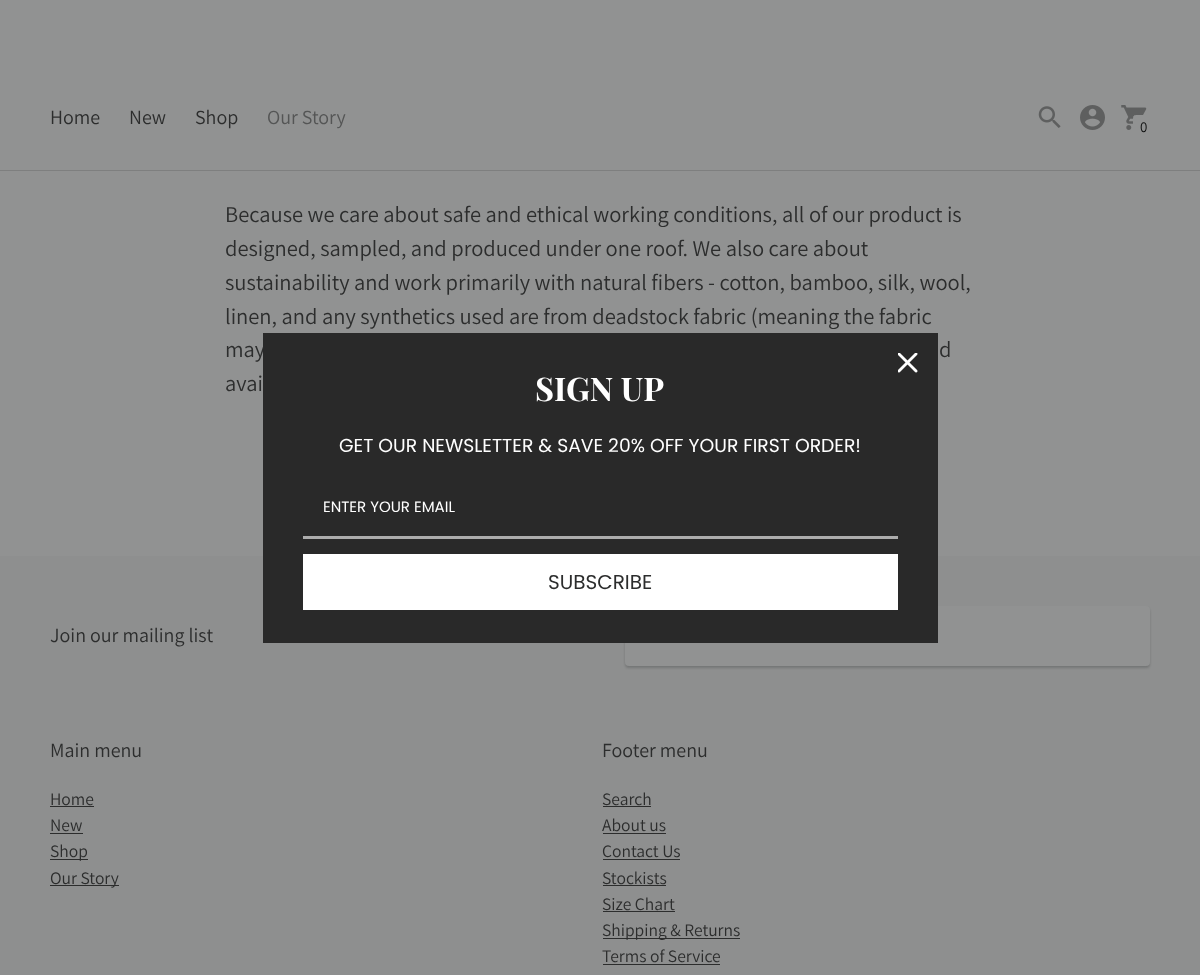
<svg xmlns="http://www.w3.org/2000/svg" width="1200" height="975">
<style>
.a{font:20px Assistant;fill:#2c2d2d}
.b{font:20px Assistant;fill:#545555}
.c{font:15px Assistant;fill:#111212}
.d{font:22.5px Assistant;fill:#2c2d2d}
.e{font:17.5px Assistant;fill:#2c2d2d}
.f{font:bold 32.5px Playfair Display;fill:#fff}
.g{font:18.75px Poppins;fill:#fff}
.h{font:15px Poppins;fill:#fff}
.i{font:20px Poppins;fill:#2c2d2d}
</style>
<defs>
<clipPath id="clip1"><path d="M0 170h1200v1H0z"/></clipPath>
</defs>
<rect width="100%" height="100%" fill="#919292"/>
<g clip-path="url(#clip1)">
<path fill="#11121226" filter="blur(0.5px)" d="M0 -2h1200v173H0z"/>
</g>
<image href="1.png" x="1038" y="106" width="23" height="22"/>
<image href="2.png" x="1080" y="105" width="25" height="25"/>
<image href="3.png" x="1121" y="105" width="26" height="25"/>
<rect fill="#919292" stroke="#919292" x="1133.5" y="115.5" width="21" height="24" rx="2"/>
<path fill="#8e8f8f" d="M0 556h1200v419H0z"/>
<rect fill="#11121233" filter="blur(1px)" x="625" y="608" width="525" height="60" rx="4"/>
<rect fill="#919292" x="625" y="606" width="525" height="60" rx="4"/>
<path fill="#2c2d2d" d="M50 806h44v1H50z"/>
<path fill="#2c2d2d" d="M50 833h33v1H50z"/>
<path fill="#2c2d2d" d="M50 859h38v1H50z"/>
<path fill="#2c2d2d" d="M50 885h69v1H50z"/>
<path fill="#2c2d2d" d="M603 806h48v1H603z"/>
<path fill="#2c2d2d" d="M603 833h63v1H603z"/>
<path fill="#2c2d2d" d="M603 859h77v1H603z"/>
<path fill="#2c2d2d" d="M603 885h63v1H603z"/>
<path fill="#2c2d2d" d="M603 911h72v1H603z"/>
<path fill="#2c2d2d" d="M603 938h137v1H603z"/>
<path fill="#2c2d2d" d="M603 964h117v1H603z"/>
<text class="a" x="50" y="124">Home</text>
<text class="a" x="129" y="124">New</text>
<text class="a" x="195" y="124">Shop</text>
<text class="b" x="267" y="124">Our Story</text>
<text class="c" x="1140" y="132">0</text>
<text class="d" x="225" y="222">Because we care about safe and ethical working conditions, all of our product is</text>
<text class="d" x="225" y="256">designed, sampled, and produced under one roof. We also care about</text>
<text class="d" x="225" y="290">sustainability and work primarily with natural fibers - cotton, bamboo, silk, wool,</text>
<text class="d" x="225" y="324">linen, and any synthetics used are from deadstock fabric (meaning the fabric</text>
<text class="d" x="225" y="357">may</text>
<text class="d" x="939" y="357">d</text>
<text class="d" x="225" y="391">avai</text>
<text class="a" x="50" y="642">Join our mailing list</text>
<text class="a" x="50" y="757">Main menu</text>
<text class="e" x="50" y="805">Home</text>
<text class="e" x="50" y="831">New</text>
<text class="e" x="50" y="857">Shop</text>
<text class="e" x="50" y="884">Our Story</text>
<text class="a" x="602" y="757">Footer menu</text>
<text class="e" x="602" y="805">Search</text>
<text class="e" x="602" y="831">About us</text>
<text class="e" x="602" y="857">Contact Us</text>
<text class="e" x="602" y="884">Stockists</text>
<text class="e" x="602" y="910">Size Chart</text>
<text class="e" x="602" y="936">Shipping &amp; Returns</text>
<text class="e" x="602" y="962">Terms of Service</text>
<path fill="#292929" d="M263 333h675v310H263z"/>
<image href="4.png" x="898" y="353" width="20" height="20"/>
<text class="f" x="535" y="401">SIGN UP</text>
<text class="g" x="339" y="452">GET OUR NEWSLETTER &amp; SAVE 20% OFF YOUR FIRST ORDER!</text>
<path fill="#acacac" d="M303 536h595v3H303z"/>
<text class="h" x="323" y="512">ENTER YOUR EMAIL</text>
<path fill="#fff" d="M303 554h595v56H303z"/>
<text class="i" x="548" y="589">SUBSCRIBE</text>
</svg>
